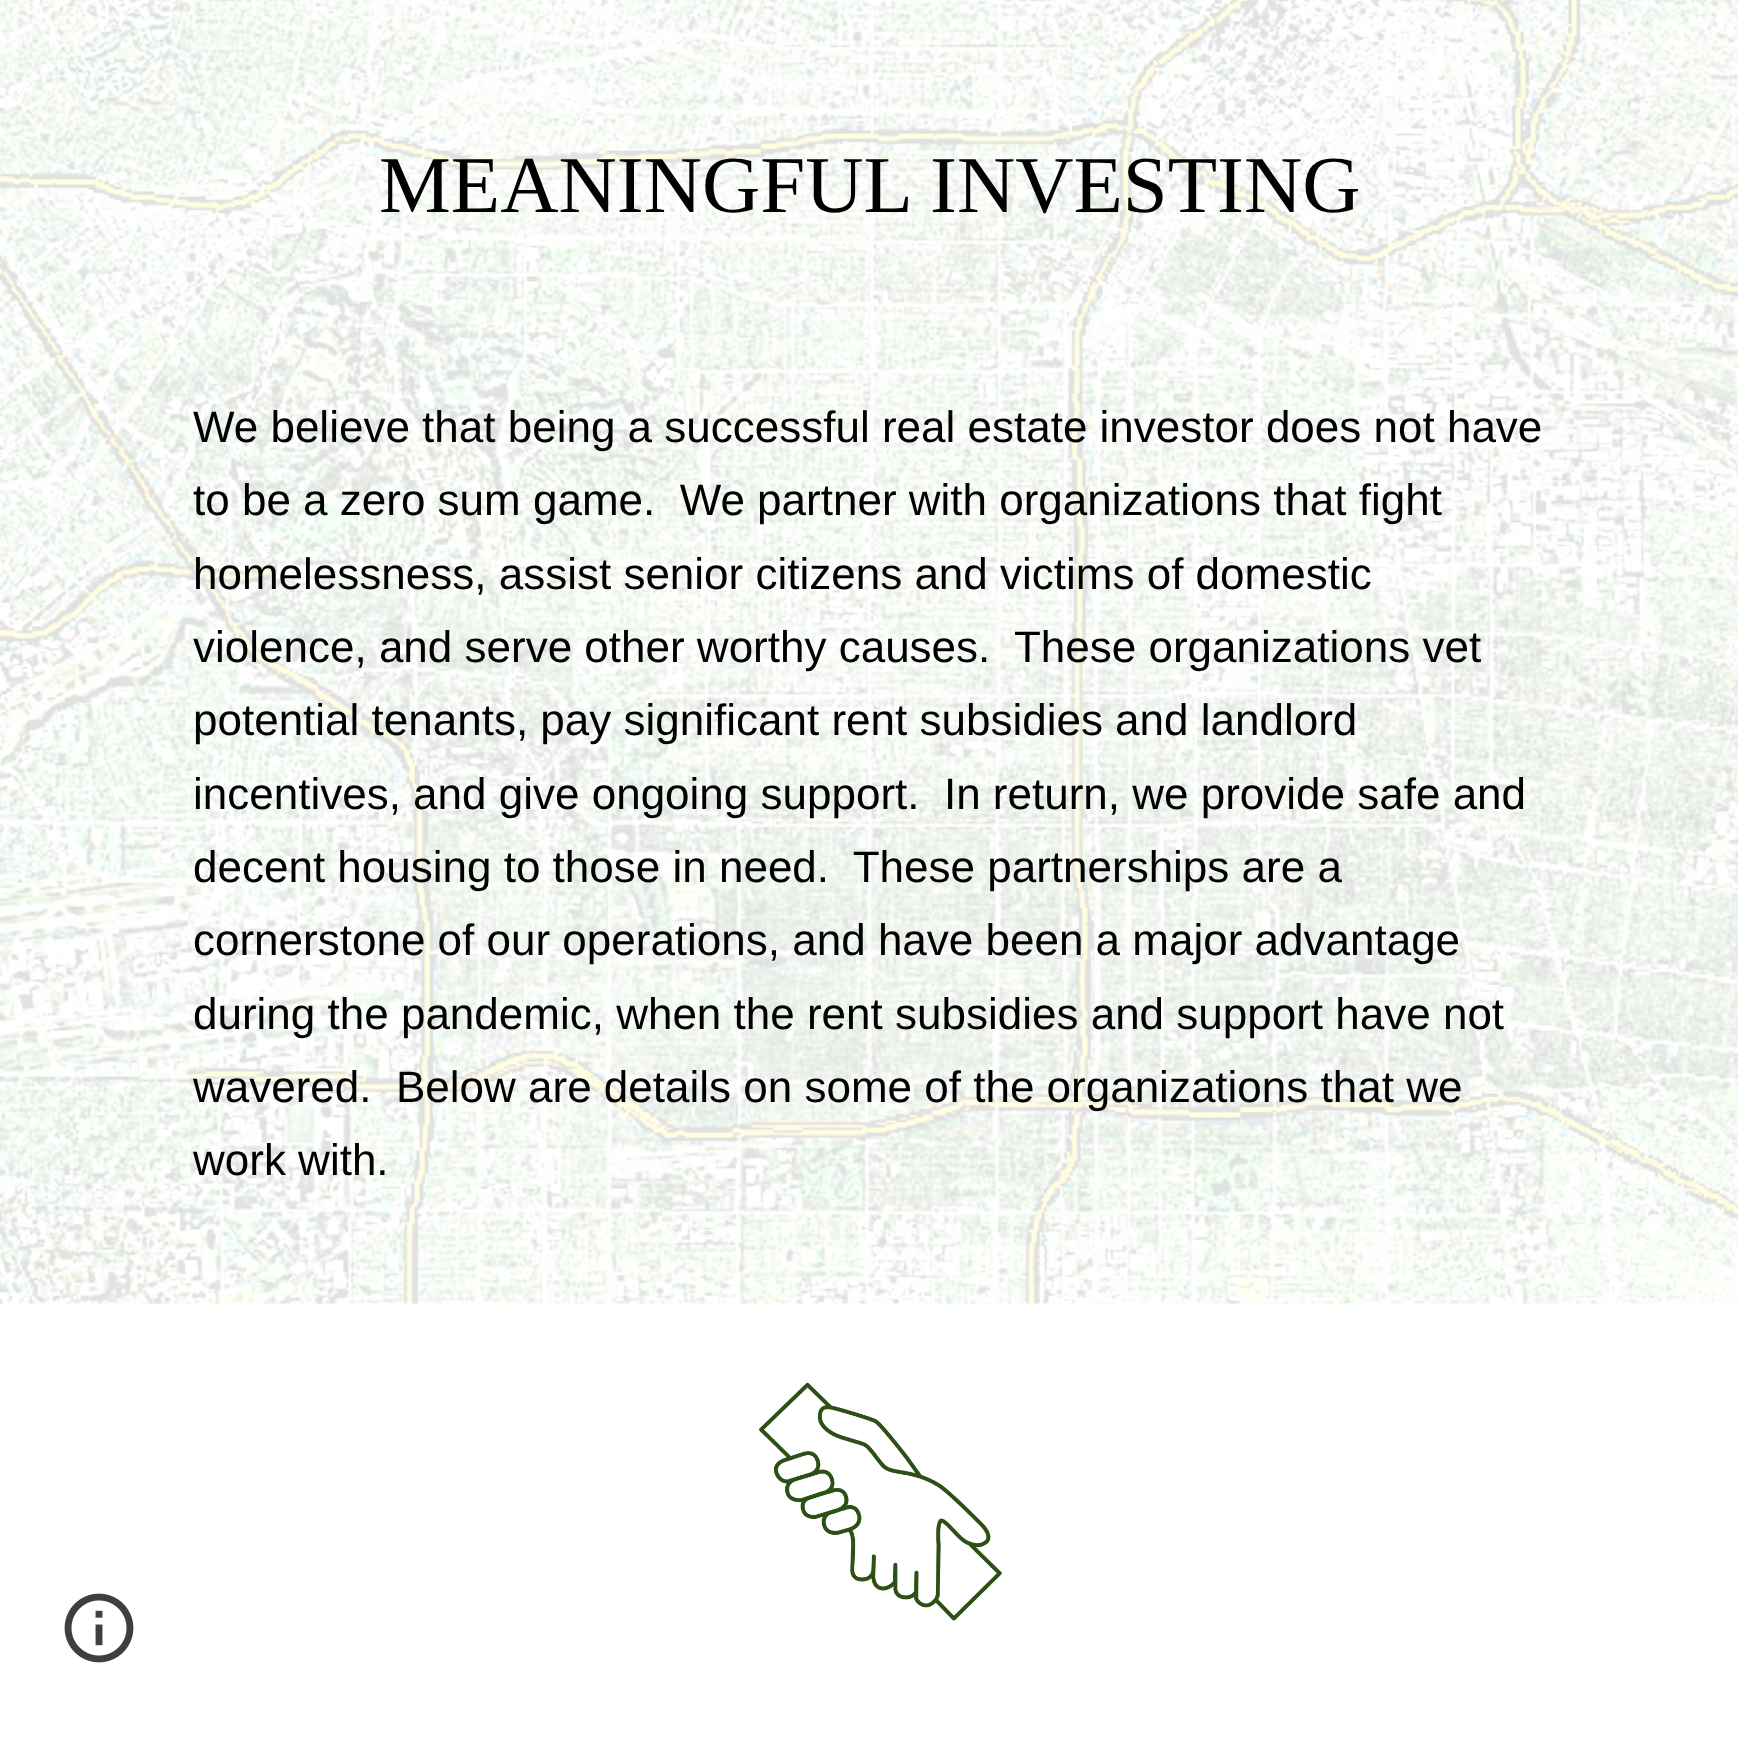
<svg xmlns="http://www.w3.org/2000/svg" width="1738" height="1756">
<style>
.a{font:80.75px Liberation Serif;fill:#000}
.b{font:44px Liberation Sans;fill:#000}
</style>
<rect width="100%" height="100%" fill="#fff"/>
<image href="1.png" x="0" y="0" width="1738" height="1304"/>
<image href="2.png" x="759" y="1382" width="243" height="239"/>
<image href="3.png" x="64" y="1593" width="70" height="70"/>
<text class="a" x="379" y="212">MEANINGFUL INVESTING</text>
<text class="b" x="193" y="442">We believe that being a successful real estate investor does not have</text>
<text class="b" xml:space="preserve" x="193" y="515">to be a zero sum game.  We partner with organizations that fight</text>
<text class="b" x="193" y="589">homelessness, assist senior citizens and victims of domestic</text>
<text class="b" xml:space="preserve" x="193" y="662">violence, and serve other worthy causes.  These organizations vet</text>
<text class="b" x="193" y="735">potential tenants, pay significant rent subsidies and landlord</text>
<text class="b" xml:space="preserve" x="193" y="809">incentives, and give ongoing support.  In return, we provide safe and</text>
<text class="b" xml:space="preserve" x="193" y="882">decent housing to those in need.  These partnerships are a</text>
<text class="b" x="193" y="955">cornerstone of our operations, and have been a major advantage</text>
<text class="b" x="193" y="1029">during the pandemic, when the rent subsidies and support have not</text>
<text class="b" xml:space="preserve" x="193" y="1102">wavered.  Below are details on some of the organizations that we</text>
<text class="b" x="193" y="1175">work with.</text>
</svg>
